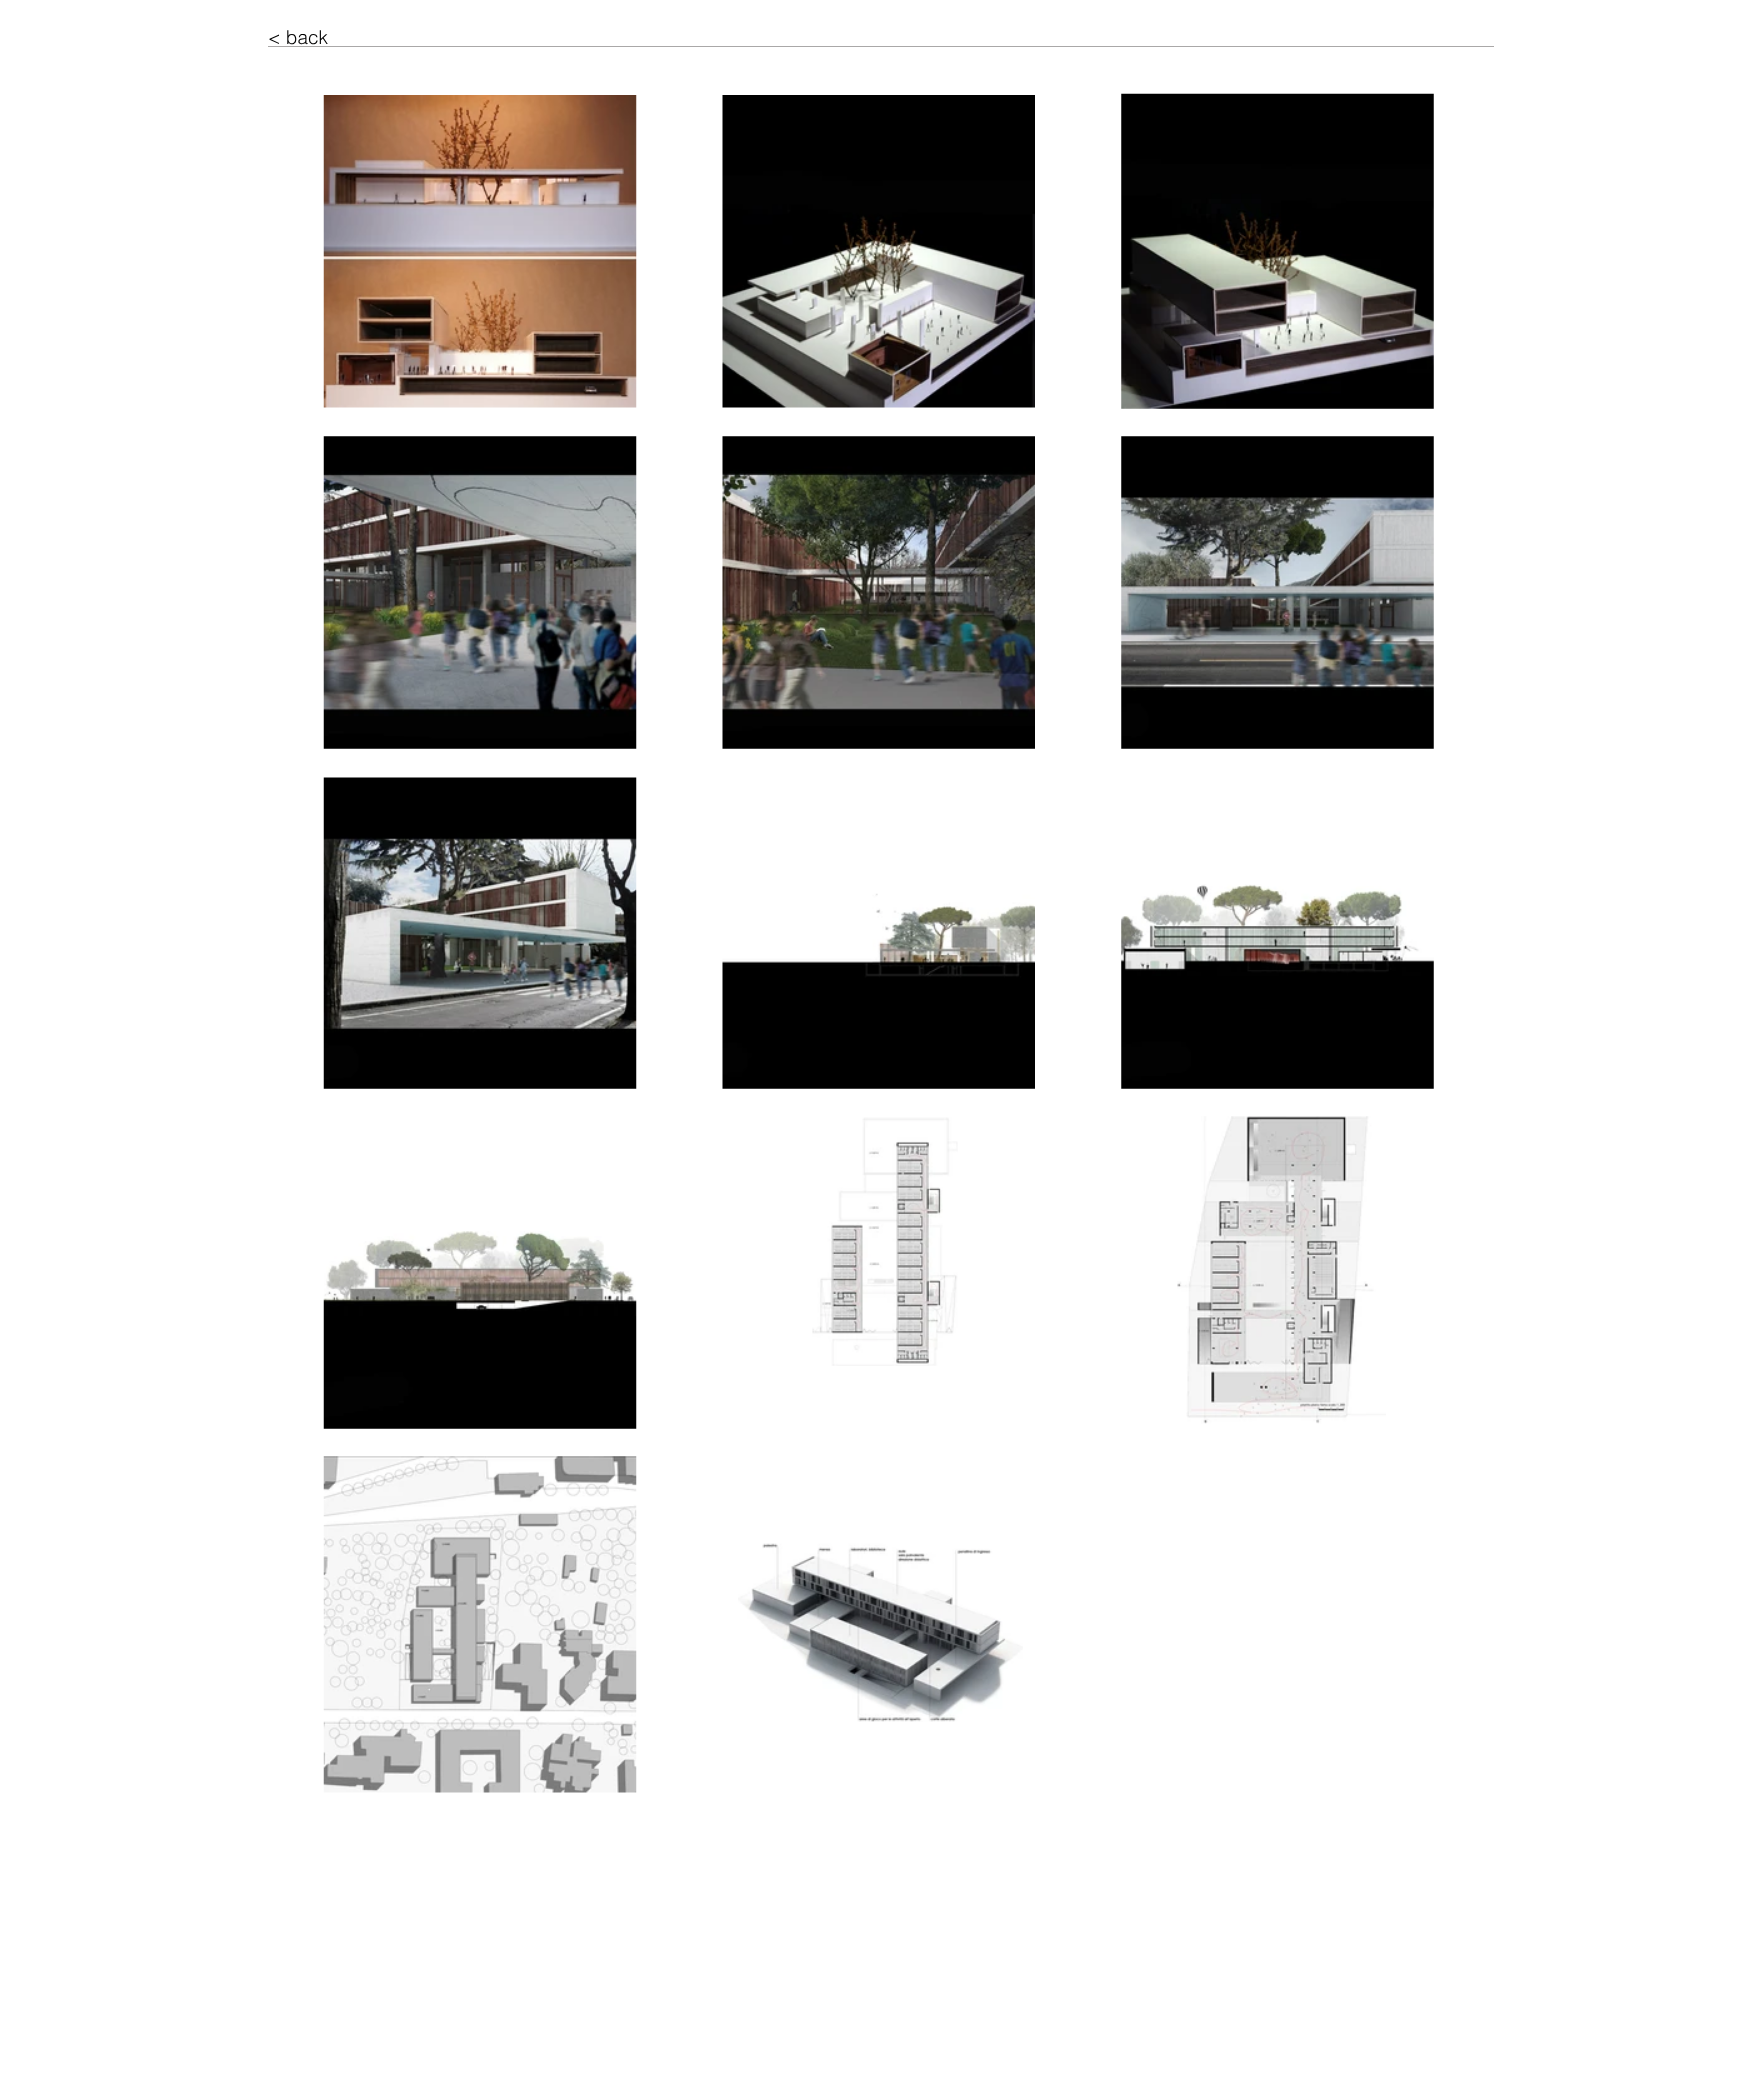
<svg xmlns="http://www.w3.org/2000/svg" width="1760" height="2076">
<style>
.a{font:300 19px helvetica;fill:#000}
</style>
<rect width="100%" height="100%" fill="#fff"/>
<path fill="#aaa8a8" d="M268 46h1226v1H268z"/>
<image href="1.png" x="323" y="95" width="314" height="313"/>
<image href="2.png" x="722" y="95" width="313" height="313"/>
<image href="3.png" x="1121" y="93" width="313" height="316"/>
<image href="4.png" x="323" y="436" width="314" height="313"/>
<image href="5.png" x="722" y="436" width="313" height="313"/>
<image href="6.png" x="1121" y="436" width="313" height="313"/>
<image href="7.png" x="323" y="777" width="314" height="312"/>
<image href="8.png" x="722" y="893" width="313" height="196"/>
<image href="9.png" x="1121" y="884" width="313" height="205"/>
<image href="10.png" x="323" y="1231" width="314" height="198"/>
<image href="11.png" x="812" y="1117" width="146" height="249"/>
<image href="12.png" x="1177" y="1116" width="209" height="308"/>
<image href="13.png" x="323" y="1456" width="314" height="337"/>
<image href="14.png" x="738" y="1543" width="285" height="179"/>
<text class="a" x="268" y="44">&lt; back</text>
</svg>
